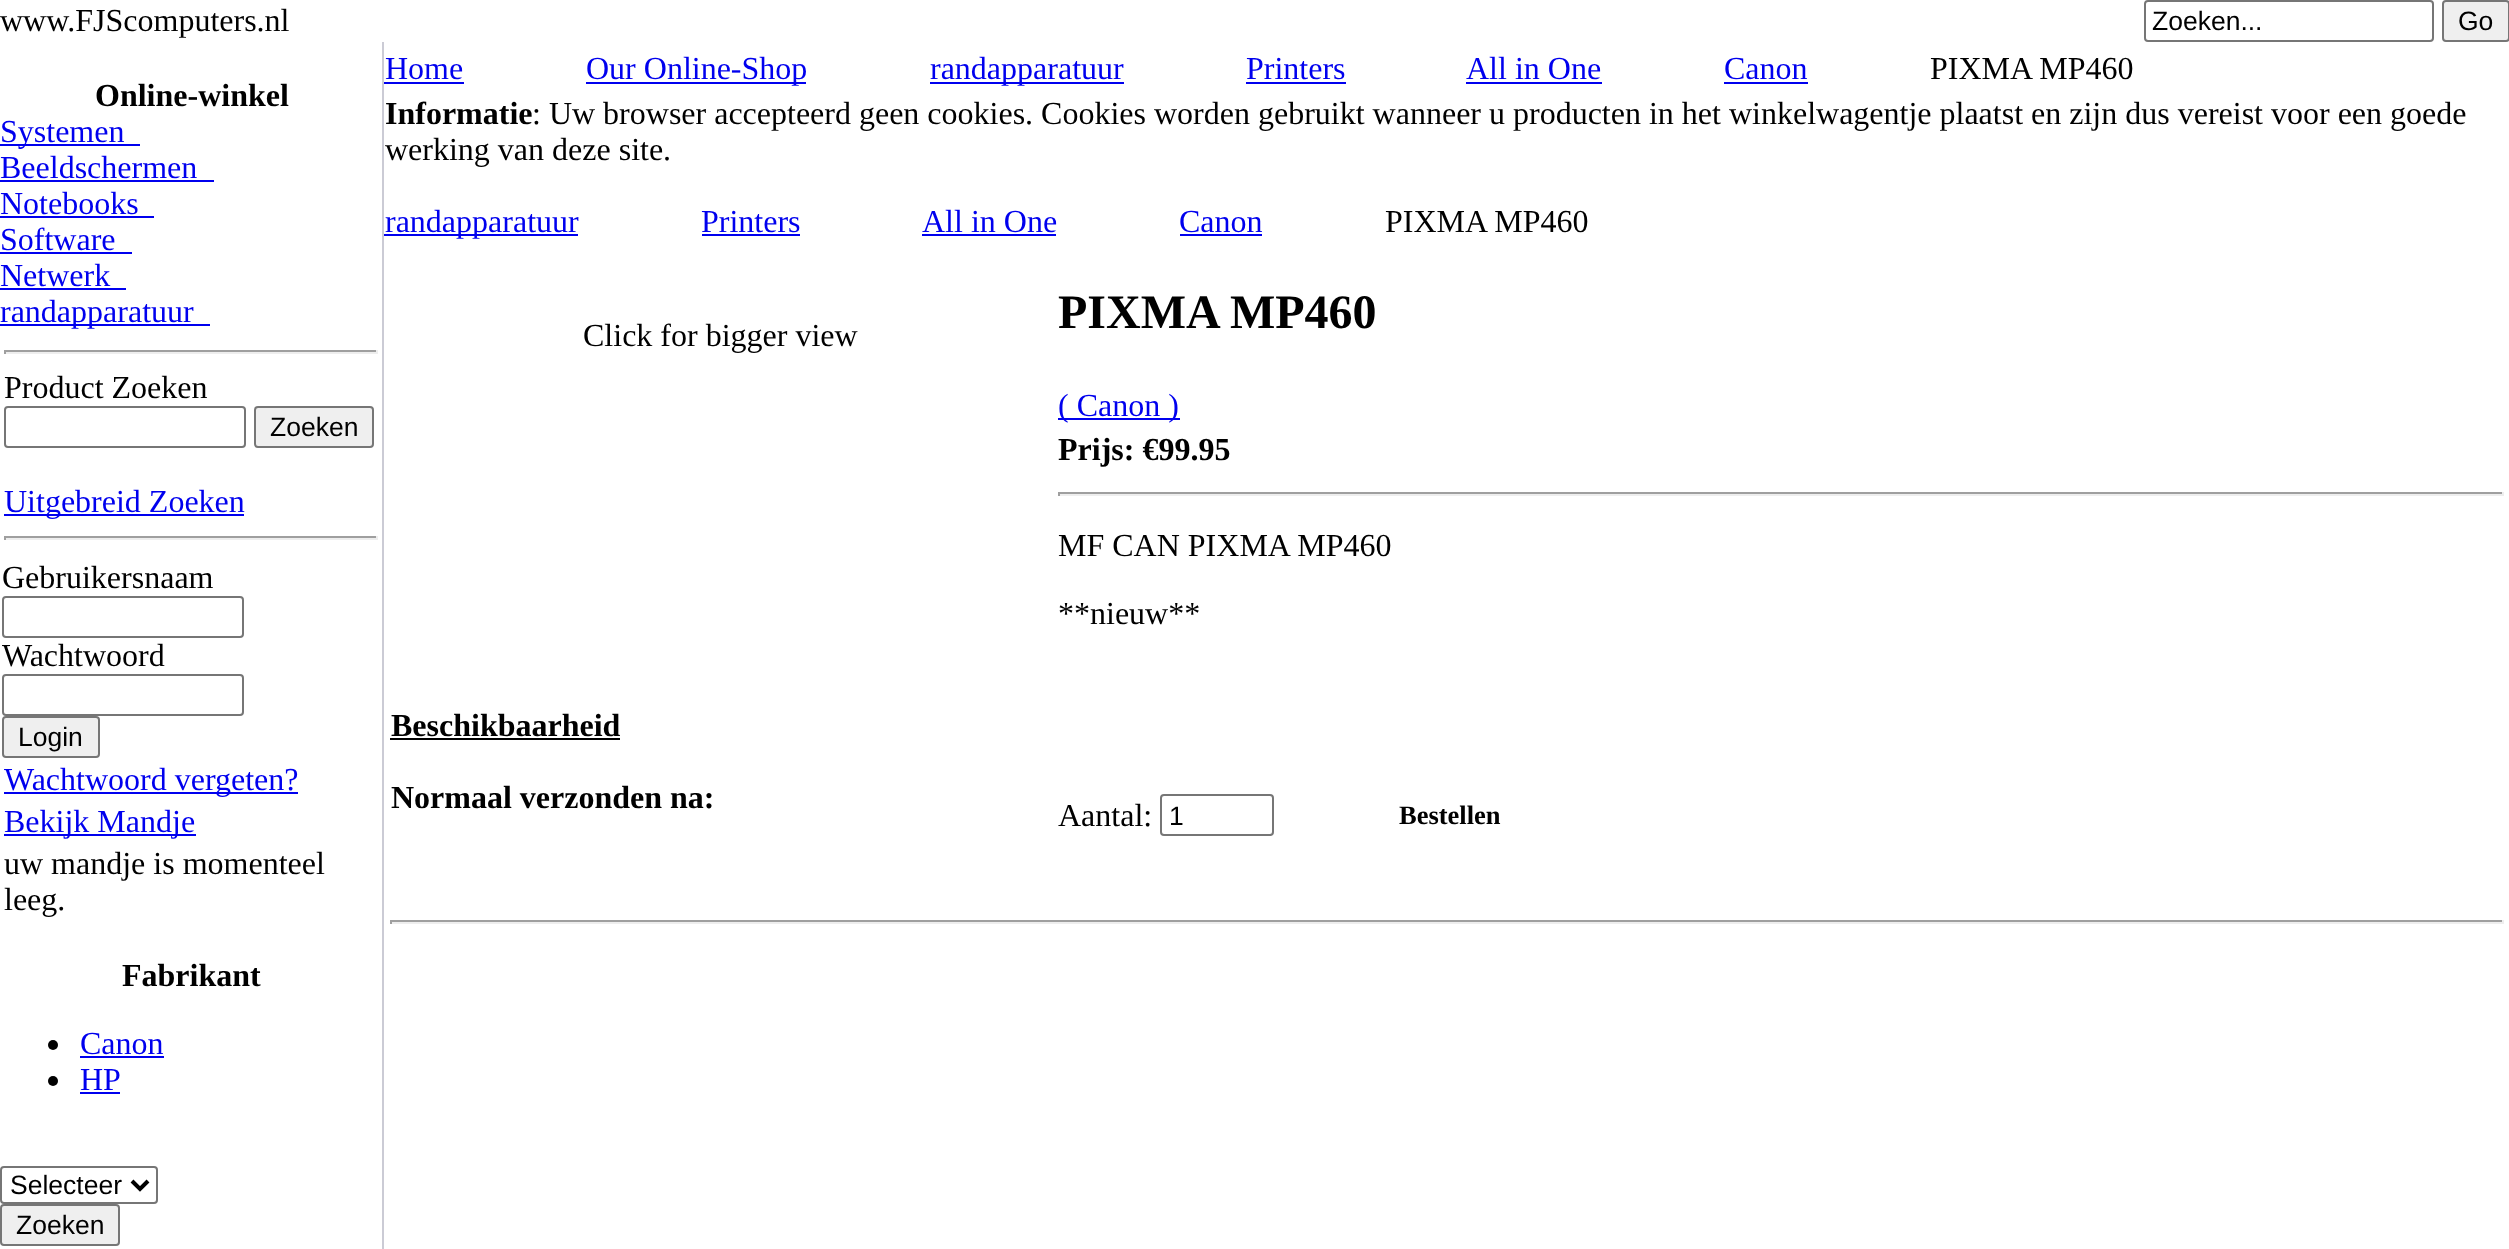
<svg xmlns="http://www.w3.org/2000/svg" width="2509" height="1249">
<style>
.a{font:32px Liberation Serif;fill:#000}
.b{font:26.5px Liberation Sans;fill:#000}
.c{font:bold 32px Liberation Serif;fill:#000}
.d{font:32px Liberation Serif;fill:#00e}
.e{font:bold 48px Liberation Serif;fill:#000}
.f{font:bold 26.5px Liberation Serif;fill:#000}
</style>
<rect width="100%" height="100%" fill="#fff"/>
<rect fill="none" stroke="#767676" stroke-width="2" x="2145" y="1" width="288" height="40" rx="3"/>
<rect fill="#efefef" stroke="#767676" stroke-width="2" x="2443" y="1" width="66" height="40" rx="3"/>
<path fill="#00e" d="M0 144h140v2H0z"/>
<path fill="#00e" d="M0 180h214v2H0z"/>
<path fill="#00e" d="M0 216h154v2H0z"/>
<path fill="#00e" d="M0 252h132v2H0z"/>
<path fill="#00e" d="M0 288h126v2H0z"/>
<path fill="#00e" d="M0 324h210v2H0z"/>
<path fill="#9f9f9f" d="M4 350h374v2H4z"/>
<path fill="#eee" d="M376 350h2v4H376z"/>
<path fill="#eee" d="M4 352h374v2H4z"/>
<path fill="#9f9f9f" d="M4 350h2v4H4z"/>
<rect fill="none" stroke="#767676" stroke-width="2" x="5" y="407" width="240" height="40" rx="3"/>
<rect fill="#efefef" stroke="#767676" stroke-width="2" x="255" y="407" width="118" height="40" rx="3"/>
<path fill="#00e" d="M4 514h240v2H4z"/>
<path fill="#9f9f9f" d="M4 536h374v2H4z"/>
<path fill="#eee" d="M376 536h2v4H376z"/>
<path fill="#eee" d="M4 538h374v2H4z"/>
<path fill="#9f9f9f" d="M4 536h2v4H4z"/>
<rect fill="none" stroke="#767676" stroke-width="2" x="3" y="597" width="240" height="40" rx="3"/>
<rect fill="none" stroke="#767676" stroke-width="2" x="3" y="675" width="240" height="40" rx="3"/>
<rect fill="#efefef" stroke="#767676" stroke-width="2" x="3" y="717" width="96" height="40" rx="3"/>
<path fill="#00e" d="M4 792h294v2H4z"/>
<path fill="#00e" d="M4 834h192v2H4z"/>
<circle fill="#000" cx="53" cy="1045" r="5"/>
<path fill="#00e" d="M80 1056h84v2H80z"/>
<circle fill="#000" cx="53" cy="1081" r="5"/>
<path fill="#00e" d="M80 1092h40v2H80z"/>
<rect fill="none" stroke="#767676" stroke-width="2" x="1" y="1167" width="156" height="36" rx="3"/>
<path fill="none" stroke="#000" stroke-width="4" d="M132 1181l8 8l8-8"/>
<rect fill="#efefef" stroke="#767676" stroke-width="2" x="1" y="1205" width="118" height="40" rx="3"/>
<path fill="#cbcbd5" d="M382 42h2v1207H382z"/>
<path fill="#00e" d="M384 82h80v2H384z"/>
<path fill="#00e" d="M586 82h220v2H586z"/>
<path fill="#00e" d="M930 82h194v2H930z"/>
<path fill="#00e" d="M1246 82h100v2H1246z"/>
<path fill="#00e" d="M1466 82h136v2H1466z"/>
<path fill="#00e" d="M1724 82h84v2H1724z"/>
<path fill="#00e" d="M384 234h194v2H384z"/>
<path fill="#00e" d="M702 234h98v2H702z"/>
<path fill="#00e" d="M922 234h134v2H922z"/>
<path fill="#00e" d="M1180 234h82v2H1180z"/>
<path fill="#00e" d="M1058 418h122v2H1058z"/>
<path fill="#9f9f9f" d="M1058 492h1446v2H1058z"/>
<path fill="#eee" d="M2502 492h2v4H2502z"/>
<path fill="#eee" d="M1058 494h1446v2H1058z"/>
<path fill="#9f9f9f" d="M1058 492h2v4H1058z"/>
<path fill="#000" d="M390 738h230v2H390z"/>
<rect fill="none" stroke="#767676" stroke-width="2" x="1161" y="795" width="112" height="40" rx="3"/>
<path fill="#9f9f9f" d="M390 920h2114v2H390z"/>
<path fill="#eee" d="M2502 920h2v4H2502z"/>
<path fill="#eee" d="M390 922h2114v2H390z"/>
<path fill="#9f9f9f" d="M390 920h2v4H390z"/>
<text class="a" x="0" y="31">www.FJScomputers.nl</text>
<text class="b" x="2152" y="30">Zoeken...</text>
<text class="b" x="2458" y="30">Go</text>
<text class="c" x="95" y="106">Online-winkel</text>
<text class="d" x="0" y="142">Systemen</text>
<text class="d" x="0" y="178">Beeldschermen</text>
<text class="d" x="0" y="214">Notebooks</text>
<text class="d" x="0" y="250">Software</text>
<text class="d" x="0" y="286">Netwerk</text>
<text class="d" x="0" y="322">randapparatuur</text>
<text class="a" x="4" y="398">Product Zoeken</text>
<text class="b" x="270" y="436">Zoeken</text>
<text class="d" x="4" y="512">Uitgebreid Zoeken</text>
<text class="a" x="2" y="588">Gebruikersnaam</text>
<text class="a" x="2" y="666">Wachtwoord</text>
<text class="b" x="18" y="746">Login</text>
<text class="d" x="4" y="790">Wachtwoord vergeten?</text>
<text class="d" x="4" y="832">Bekijk Mandje</text>
<text class="a" x="4" y="874">uw mandje is momenteel</text>
<text class="a" x="4" y="910">leeg.</text>
<text class="c" x="122" y="986">Fabrikant</text>
<text class="d" x="80" y="1054">Canon</text>
<text class="d" x="80" y="1090">HP</text>
<text class="b" x="10" y="1194">Selecteer</text>
<text class="b" x="16" y="1234">Zoeken</text>
<text class="d" x="385" y="79">Home</text>
<text class="d" x="586" y="79">Our Online-Shop</text>
<text class="d" x="930" y="79">randapparatuur</text>
<text class="d" x="1246" y="79">Printers</text>
<text class="d" x="1466" y="79">All in One</text>
<text class="d" x="1724" y="79">Canon</text>
<text class="a" x="1930" y="79">PIXMA MP460</text>
<text class="c" x="385" y="124">Informatie</text>
<text class="a" x="532" y="124">: Uw browser accepteerd geen cookies. Cookies worden gebruikt wanneer u producten in het winkelwagentje plaatst en zijn dus vereist voor een goede</text>
<text class="a" x="385" y="160">werking van deze site.</text>
<text class="d" x="385" y="232">randapparatuur</text>
<text class="d" x="701" y="232">Printers</text>
<text class="d" x="922" y="232">All in One</text>
<text class="d" x="1179" y="232">Canon</text>
<text class="a" x="1385" y="232">PIXMA MP460</text>
<text class="e" x="1058" y="328">PIXMA MP460</text>
<text class="a" x="583" y="346">Click for bigger view</text>
<text class="d" x="1058" y="416">( Canon )</text>
<text class="c" x="1058" y="460">Prijs: €99.95</text>
<text class="a" x="1058" y="556">MF CAN PIXMA MP460</text>
<text class="a" x="1058" y="624">**nieuw**</text>
<text class="c" x="391" y="736">Beschikbaarheid</text>
<text class="c" x="391" y="808">Normaal verzonden na:</text>
<text class="a" x="1058" y="826">Aantal:</text>
<text class="b" x="1169" y="825">1</text>
<text class="f" x="1399" y="824">Bestellen</text>
</svg>
